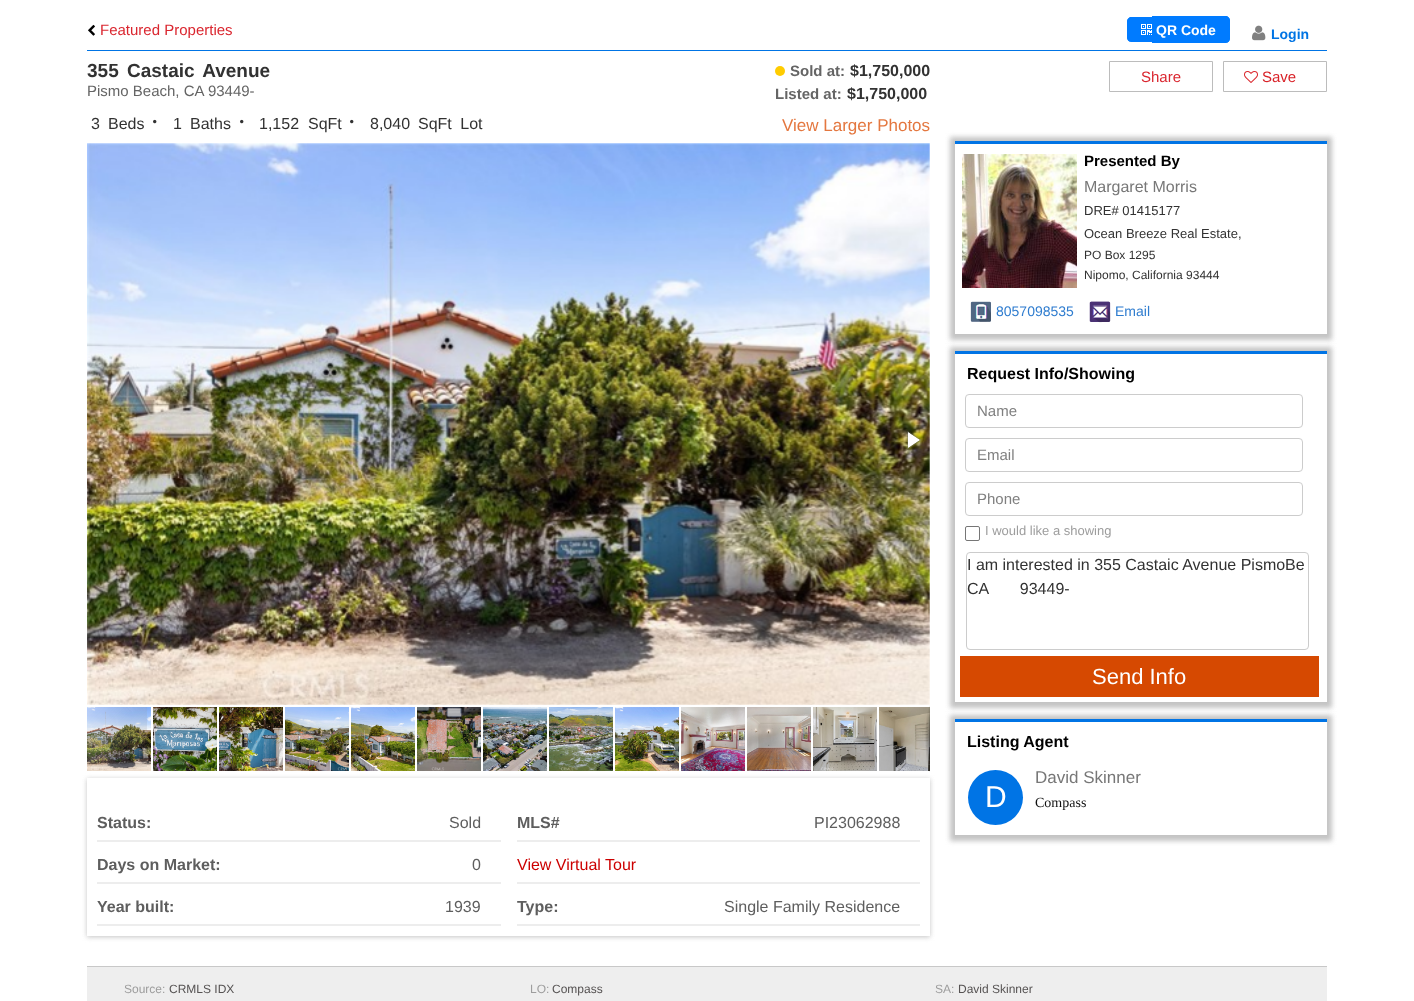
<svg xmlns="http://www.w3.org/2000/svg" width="1414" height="1001">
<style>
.a{font:15px Liberation Sans;fill:#da262f}
.b{font:bold 14px Liberation Sans;fill:#fff}
.c{font:bold 14px Liberation Sans;fill:#0074e4}
.d{font:bold 19px Liberation Sans;fill:#323232}
.e{font:bold 15px Liberation Sans;fill:#656565}
.f{font:bold 16px Liberation Sans;fill:#323232}
.g{font:15px Liberation Sans;fill:#656565}
.h{font:16px Liberation Sans;fill:#323232}
.i{font:17px Liberation Sans;fill:#e4773f}
.j{font:bold 16px Liberation Sans;fill:#5e5e5e}
.k{font:16px Liberation Sans;fill:#5e5e5e}
.l{font:16px Liberation Sans;fill:#c00}
.m{font:15px Liberation Sans;fill:#d92228}
.n{font:bold 15px Liberation Sans;fill:#000}
.o{font:16px Liberation Sans;fill:#777}
.p{font:13px Liberation Sans;fill:#323232}
.q{font:12px Liberation Sans;fill:#323232}
.r{font:14px Liberation Sans;fill:#2e7ccf}
.s{font:bold 16px Liberation Sans;fill:#000}
.t{font:15px Liberation Sans;fill:#808080}
.u{font:13px Liberation Sans;fill:#9d9d9d}
.v{font:22px Liberation Sans;fill:#fff}
.w{font:30px Liberation Sans;fill:#fff}
.x{font:17px Liberation Sans;fill:#777}
.y{font:14px Liberation Serif;fill:#111}
.z{font:12px Liberation Sans;fill:#9d9d9d}
.a1{font:12px Liberation Sans;fill:#565353}
</style>
<defs>
<clipPath id="clip1"><path d="M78 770h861v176h-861zm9 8h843v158h-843z" clip-rule="evenodd"/></clipPath>
<radialGradient id="g1" gradientUnits="userSpaceOnUse" cx="0" cy="0" r="1" gradientTransform="matrix(5 0 0 34 930 739)"><stop offset="0" stop-color="#000" stop-opacity="0.4"/><stop offset="1" stop-color="#000" stop-opacity="0"/></radialGradient>
<linearGradient id="g2" gradientUnits="userSpaceOnUse" x1="930" y1="705" x2="930" y2="773"><stop offset="0" stop-color="#000" stop-opacity="0"/><stop offset="0.25" stop-color="#000" stop-opacity="0.2"/><stop offset="0.75" stop-color="#000" stop-opacity="0.3"/><stop offset="1" stop-color="#000" stop-opacity="0"/></linearGradient>
<clipPath id="clip2"><path d="M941 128h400v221h-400zm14 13h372v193h-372z" clip-rule="evenodd"/></clipPath>
<clipPath id="clip3"><path d="M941 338h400v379h-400zm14 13h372v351h-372z" clip-rule="evenodd"/></clipPath>
<clipPath id="clip4"><path d="M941 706h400v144h-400zm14 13h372v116h-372z" clip-rule="evenodd"/></clipPath>
</defs>
<rect width="100%" height="100%" fill="#fff"/>
<image href="1.png" x="88" y="24" width="7" height="12"/>
<path fill="#007bff" d="M1132 17h20v25h-20c-3 0-5-2-5-5v-15c0-3 2-5 5-5z"/>
<path fill="#007bff" fill-rule="evenodd" d="M1132 17h20v25h-20c-3 0-5-2-5-5v-15c0-3 2-5 5-5zm0 1h20v24h-20c-2 0-4-2-4-5v-15c0-2 2-4 4-4z"/>
<path fill="#007bff" d="M1152 16h73c3 0 5 2 5 5v17c0 3-2 5-5 5h-73z"/>
<path fill="#007bff" fill-rule="evenodd" d="M1152 16h73c3 0 5 2 5 5v17c0 3-2 5-5 5h-73zm0 1h73c2 0 4 2 4 4v17c0 3-2 5-4 5h-73z"/>
<image href="2.png" x="1141" y="24" width="11" height="11"/>
<image href="3.png" x="1252" y="25" width="14" height="16"/>
<path fill="#0074e5" d="M87 50h1240v1H87z"/>
<circle fill="#fc0" cx="780" cy="71" r="5"/>
<image href="4.png" x="153" y="119" width="4" height="5"/>
<image href="4.png" x="240" y="119" width="4" height="5"/>
<image href="4.png" x="350" y="119" width="4" height="5"/>
<image href="5.png" x="87" y="143" width="843" height="562"/>
<image href="6.png" x="97" y="431" width="13" height="17"/>
<image href="7.png" x="903" y="431" width="19" height="20"/>
<g clip-path="url(#clip1)">
<path fill="#c4c4c4" filter="blur(2.5px)" d="M87 779h843v158H87z"/>
</g>
<image href="20.png" x="879" y="707" width="51" height="64"/>
<path fill="url(#g1)" d="M925 705h5v68H925z"/>
<path fill="url(#g2)" d="M929 705h1v68H929z"/>
<image href="8.png" x="87" y="707" width="64" height="64"/>
<image href="9.png" x="153" y="707" width="64" height="64"/>
<image href="10.png" x="219" y="707" width="64" height="64"/>
<image href="11.png" x="285" y="707" width="64" height="64"/>
<image href="12.png" x="351" y="707" width="64" height="64"/>
<image href="13.png" x="417" y="707" width="64" height="64"/>
<image href="14.png" x="483" y="707" width="64" height="64"/>
<image href="15.png" x="549" y="707" width="64" height="64"/>
<image href="16.png" x="615" y="707" width="64" height="64"/>
<image href="17.png" x="681" y="707" width="64" height="64"/>
<image href="18.png" x="747" y="707" width="64" height="64"/>
<image href="19.png" x="813" y="707" width="64" height="64"/>
<path fill="#ededed" d="M97 840h404v2H97z"/>
<path fill="#ededed" d="M517 840h403v2H517z"/>
<path fill="#ededed" d="M97 882h404v2H97z"/>
<path fill="#ededed" d="M517 882h403v2H517z"/>
<path fill="#ededed" d="M97 924h404v2H97z"/>
<path fill="#ededed" d="M517 924h403v2H517z"/>
<path fill="none" stroke="#bcbcbc" d="M1109.5 61.5h103v30H1109.5z"/>
<path fill="none" stroke="#bcbcbc" d="M1223.5 61.5h103v30H1223.5z"/>
<image href="21.png" x="1244" y="71" width="14" height="12"/>
<g clip-path="url(#clip2)">
<path fill="#c4c4c4" filter="blur(2.5px)" d="M950 137h382v203H950z"/>
</g>
<path fill="#0074e5" d="M955 141h372v3H955z"/>
<image href="22.png" x="962" y="154" width="115" height="134"/>
<image href="23.png" x="970" y="301" width="21" height="21"/>
<image href="24.png" x="1089" y="301" width="22" height="22"/>
<g clip-path="url(#clip3)">
<path fill="#c4c4c4" filter="blur(2.5px)" d="M950 347h382v361H950z"/>
</g>
<path fill="#0074e5" d="M955 351h372v3H955z"/>
<rect fill="none" stroke="#ccc" x="965.5" y="394.5" width="337" height="33" rx="3.5"/>
<rect fill="none" stroke="#ccc" x="965.5" y="438.5" width="337" height="33" rx="3.5"/>
<rect fill="none" stroke="#ccc" x="965.5" y="482.5" width="337" height="33" rx="3.5"/>
<rect fill="none" stroke="#767676" x="965.5" y="526.5" width="14" height="14" rx="1.5"/>
<rect fill="none" stroke="#ccc" x="966.5" y="552.5" width="342" height="97" rx="3.5"/>
<path fill="#d64901" d="M960 656h359v41H960z"/>
<g clip-path="url(#clip4)">
<path fill="#c4c4c4" filter="blur(2.5px)" d="M950 715h382v126H950z"/>
</g>
<path fill="#0074e5" d="M955 719h372v3H955z"/>
<circle fill="#0074e5" cx="995.5" cy="797.5" r="27.5"/>
<path fill="#eee" d="M87 967h1240v34H87z"/>
<path fill="#c8c8c8" d="M87 966h1240v1H87z"/>
<text class="a" x="100" y="35">Featured Properties</text>
<text class="b" x="1156" y="35">QR Code</text>
<text class="c" x="1271" y="39">Login</text>
<text class="d" x="87" y="77" word-spacing="3">355 Castaic Avenue</text>
<text class="e" x="790" y="76">Sold at:</text>
<text class="f" x="850" y="76">$1,750,000</text>
<text class="e" x="775" y="99">Listed at:</text>
<text class="f" x="847" y="99">$1,750,000</text>
<text class="g" x="87" y="96">Pismo Beach, CA 93449-</text>
<text class="h" x="91" y="129">3</text>
<text class="h" x="108" y="129">Beds</text>
<text class="h" x="173" y="129">1</text>
<text class="h" x="190" y="129">Baths</text>
<text class="h" x="259" y="129">1,152</text>
<text class="h" x="308" y="129">SqFt</text>
<text class="h" x="370" y="129">8,040</text>
<text class="h" x="418" y="129" word-spacing="4">SqFt Lot</text>
<text class="i" x="782" y="131">View Larger Photos</text>
<text class="j" x="97" y="828">Status:</text>
<text class="k" x="449" y="828">Sold</text>
<text class="j" x="517" y="828">MLS#</text>
<text class="k" x="814" y="828">PI23062988</text>
<text class="j" x="97" y="870">Days on Market:</text>
<text class="k" x="472" y="870">0</text>
<text class="l" x="517" y="870">View Virtual Tour</text>
<text class="j" x="97" y="912">Year built:</text>
<text class="k" x="445" y="912">1939</text>
<text class="j" x="517" y="912">Type:</text>
<text class="k" x="724" y="912">Single Family Residence</text>
<text class="a" x="1141" y="82">Share</text>
<text class="m" x="1262" y="82">Save</text>
<text class="n" x="1084" y="166">Presented By</text>
<text class="o" x="1084" y="192">Margaret Morris</text>
<text class="p" x="1084" y="215">DRE# 01415177</text>
<text class="p" x="1084" y="238">Ocean Breeze Real Estate,</text>
<text class="q" x="1084" y="259">PO Box 1295</text>
<text class="q" x="1084" y="279">Nipomo, California 93444</text>
<text class="r" x="996" y="316">8057098535</text>
<text class="r" x="1115" y="316">Email</text>
<text class="s" x="967" y="379">Request Info/Showing</text>
<text class="t" x="977" y="416">Name</text>
<text class="t" x="977" y="460">Email</text>
<text class="t" x="977" y="504">Phone</text>
<text class="u" x="985" y="535">I would like a showing</text>
<text class="h" x="967" y="570">I am interested in 355 Castaic Avenue PismoBe</text>
<text class="h" x="967" y="594" word-spacing="27">CA 93449-</text>
<text class="v" x="1092" y="684">Send Info</text>
<text class="s" x="967" y="747">Listing Agent</text>
<text class="w" x="985" y="807">D</text>
<text class="x" x="1035" y="783">David Skinner</text>
<text class="y" x="1035" y="807">Compass</text>
<text class="z" x="124" y="993">Source:</text>
<text class="a1" x="169" y="993">CRMLS IDX</text>
<text class="z" x="530" y="993">LO:</text>
<text class="a1" x="552" y="993">Compass</text>
<text class="z" x="935" y="993">SA:</text>
<text class="a1" x="958" y="993">David Skinner</text>
</svg>
